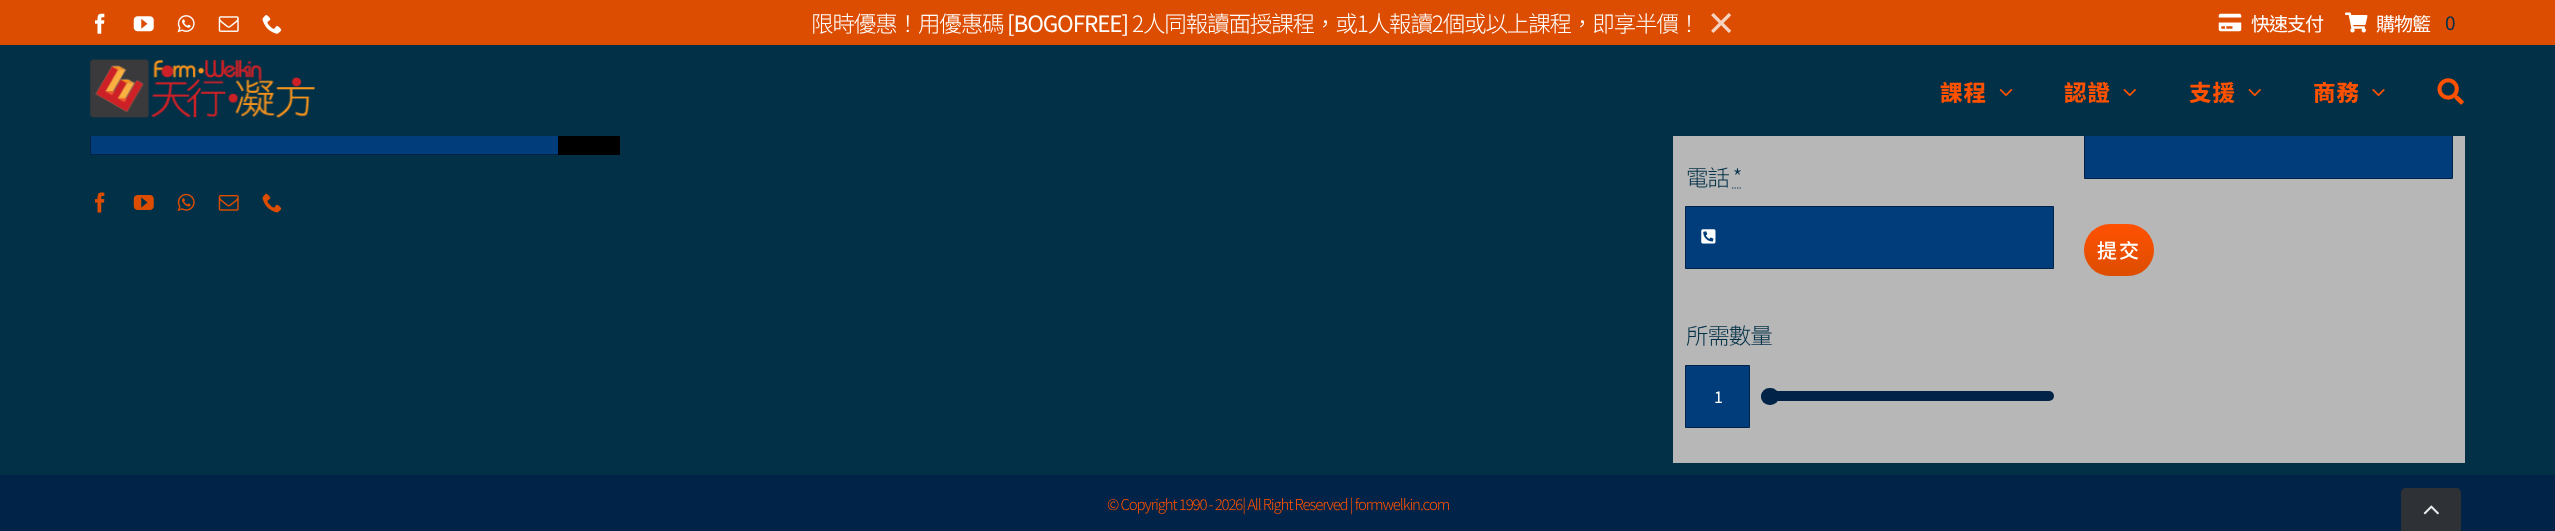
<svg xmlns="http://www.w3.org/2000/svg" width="2555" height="531">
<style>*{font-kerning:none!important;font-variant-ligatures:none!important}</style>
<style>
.a{font:300 22.5px Noto Sans HK;letter-spacing:-1.12px;fill:#fff}
.b{font:22.5px Noto Sans HK;letter-spacing:-1.12px;fill:#fff}
.c{font:45px Liberation Sans;fill:#f6d3c0}
.d{font:19px Noto Sans HK;letter-spacing:-1px;fill:#fff}
.e{font:19px Noto Sans HK;letter-spacing:-1px;fill:#023047}
.f{font:800 22.5px Noto Sans HK;letter-spacing:1px;fill:#ff5100}
.g{font:300 22.5px Noto Sans HK;letter-spacing:-1.12px;fill:#023047}
.h{font:16px Noto Sans HK;fill:#fff}
.i{font:500 20px Noto Sans HK;letter-spacing:2px;fill:#fff}
.j{font:300 15px Noto Sans HK;letter-spacing:-1.12px;fill:#ff5100}
</style>
<defs>
<linearGradient id="g1" gradientUnits="userSpaceOnUse" x1="2119" y1="224" x2="2119" y2="276"><stop offset="0" stop-color="#ff5100"/><stop offset="1" stop-color="#dc4d01"/></linearGradient>
</defs>
<rect width="100%" height="100%" fill="#023047"/>
<path fill="#dc4d01" d="M0 0h2555v45H0z"/>
<image href="1.png" x="95" y="13" width="10" height="21"/>
<image href="2.png" x="133" y="16" width="21" height="16"/>
<image href="3.png" x="177" y="15" width="18" height="18"/>
<image href="4.png" x="218" y="16" width="21" height="16"/>
<image href="5.png" x="262" y="15" width="20" height="19"/>
<image href="6.png" x="2218" y="13" width="24" height="19"/>
<image href="7.png" x="2345" y="12" width="23" height="21"/>
<path fill="#b7b7b7" d="M1673 136h792v327H1673z"/>
<path fill="#003d7a" d="M2085 136h367v42H2085z"/>
<path fill="none" stroke="#002347" d="M2084.5 49.5h368v129H2084.5z"/>
<path fill="#023047" d="M2084 49h369v87H2084z"/>
<image href="8.png" x="90" y="59" width="225" height="59"/>
<image href="9.png" x="1999" y="89" width="14" height="8"/>
<image href="10.png" x="2123" y="89" width="13" height="8"/>
<image href="10.png" x="2248" y="89" width="13" height="8"/>
<image href="11.png" x="2372" y="89" width="13" height="8"/>
<image href="12.png" x="2437" y="78" width="27" height="27"/>
<path fill="#003d7a" d="M91 136h467v18H91z"/>
<path fill="#002347" d="M90 154h468v1H90z"/>
<path fill="#002347" d="M90 136h1v19H90z"/>
<path fill="#000" d="M558 136h62v19H558z"/>
<image href="13.png" x="95" y="192" width="10" height="21"/>
<image href="14.png" x="133" y="195" width="21" height="15"/>
<image href="15.png" x="177" y="193" width="18" height="19"/>
<image href="16.png" x="218" y="195" width="21" height="16"/>
<image href="17.png" x="262" y="193" width="20" height="20"/>
<path fill="none" stroke="#023047" stroke-width="1.2" stroke-dasharray="1.25 1.25" d="M1732 188h9"/>
<path fill="#003d7a" stroke="#002347" d="M1685.5 206.5h368v62H1685.5z"/>
<image href="18.png" x="1701" y="229" width="15" height="15"/>
<path fill="#003d7a" stroke="#002347" d="M1685.5 365.5h64v62H1685.5z"/>
<rect fill="#002347" x="1761" y="391" width="293" height="10" rx="5"/>
<rect fill="#002347" x="1761" y="388" width="18" height="17" rx="8.5"/>
<rect fill="url(#g1)" x="2084" y="224" width="70" height="52" rx="26"/>
<path fill="#002347" d="M0 475h2555v56H0z"/>
<path fill="#2e3135" d="M2406 488h50c3 0 5 2 5 5v38h-60v-38c0-3 2-5 5-5z"/>
<image href="19.png" x="2423" y="505" width="16" height="10"/>
<text class="a" x="811" y="32">限時優惠！用優惠碼</text>
<text class="b" x="1007" y="32">[BOGOFREE]</text>
<text class="a" x="1132" y="32">2人同報讀面授課程，或1人報讀2個或以上課程，即享半價！</text>
<text class="c" x="1708" y="38">×</text>
<text class="d" x="2251" y="31">快速支付</text>
<text class="d" x="2376" y="31">購物籃</text>
<text class="e" x="2445" y="30">0</text>
<text class="f" x="1940" y="101">課程</text>
<text class="f" x="2064" y="101">認證</text>
<text class="f" x="2189" y="101">支援</text>
<text class="f" x="2313" y="101">商務</text>
<text class="g" x="1686" y="186">電話 *</text>
<text class="g" x="1686" y="344">所需數量</text>
<text class="h" x="1714" y="403">1</text>
<text class="i" x="2097" y="258">提交</text>
<text class="j" x="1107" y="510">© Copyright 1990 - 2026| All Right Reserved | formwelkin.com</text>
</svg>
